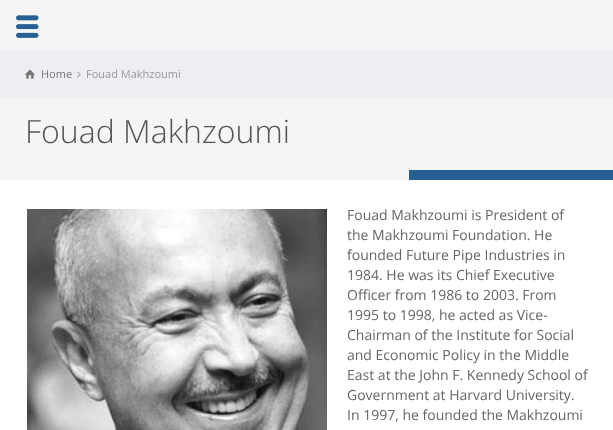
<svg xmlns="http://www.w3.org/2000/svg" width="613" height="430">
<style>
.a{font:11px Open Sans;fill:#777}
.b{font:11px Open Sans;fill:#999}
.c{font:300 32px Open Sans;fill:#555}
.d{font:14px Open Sans;fill:#666}
</style>
<rect width="100%" height="100%" fill="#f5f5f5"/>
<image href="1.png" x="16" y="15" width="23" height="23"/>
<path fill="#edeef1" d="M0 50h613v48H0z"/>
<image href="2.png" x="25" y="69" width="10" height="10"/>
<image href="3.png" x="77" y="71" width="4" height="7"/>
<path fill="#265f92" d="M409 170h204v10H409z"/>
<path fill="#fff" d="M0 180h613v250H0z"/>
<image href="4.png" x="27" y="209" width="300" height="221"/>
<text class="a" x="41" y="78">Home</text>
<text class="b" x="86" y="78">Fouad Makhzoumi</text>
<text class="c" x="25" y="143">Fouad Makhzoumi</text>
<text class="d" x="347" y="220">Fouad Makhzoumi is President of</text>
<text class="d" x="347" y="240">the Makhzoumi Foundation. He</text>
<text class="d" x="347" y="260">founded Future Pipe Industries in</text>
<text class="d" x="347" y="280">1984. He was its Chief Executive</text>
<text class="d" x="347" y="300">Officer from 1986 to 2003. From</text>
<text class="d" x="347" y="320">1995 to 1998, he acted as Vice-</text>
<text class="d" x="347" y="340">Chairman of the Institute for Social</text>
<text class="d" x="347" y="360">and Economic Policy in the Middle</text>
<text class="d" x="347" y="380">East at the John F. Kennedy School of</text>
<text class="d" x="347" y="400">Government at Harvard University.</text>
<text class="d" x="347" y="420">In 1997, he founded the Makhzoumi</text>
</svg>
